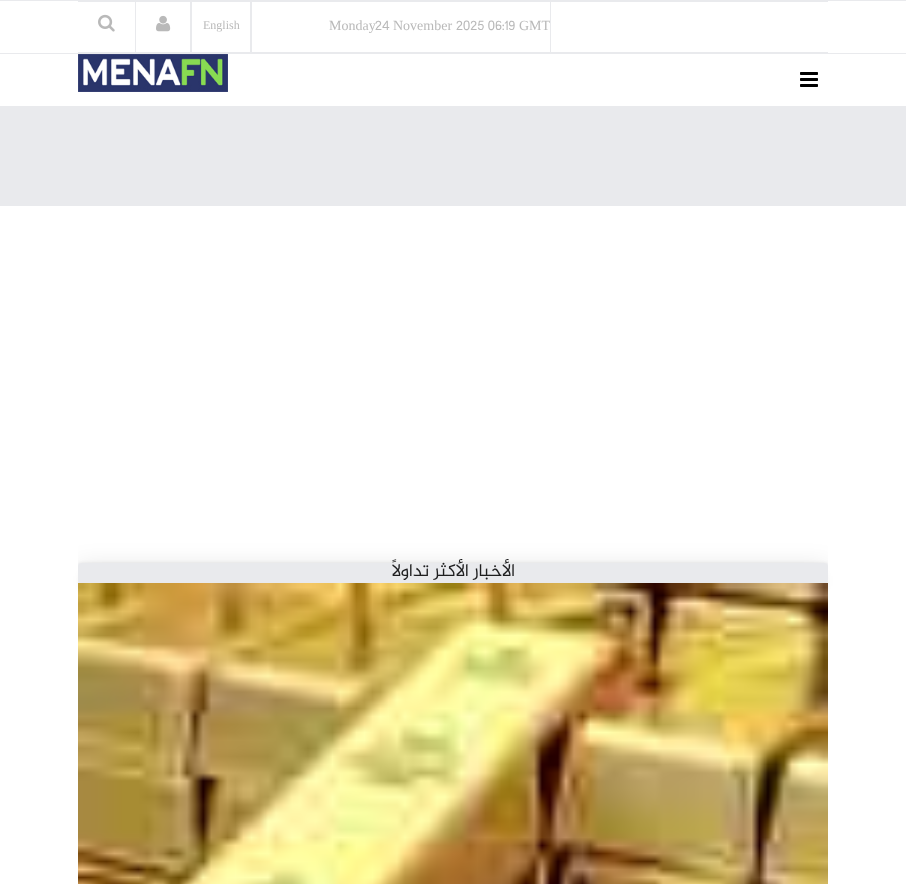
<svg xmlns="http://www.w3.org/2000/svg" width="906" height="884">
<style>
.a{font:12px Liberation Serif;fill:#b9b9b9}
.b{font:14px Liberation Serif;fill:#b9b9b9}
.c{font:14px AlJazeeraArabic;fill:#b9b9b9}
.d{font:18px AlJazeeraArabic;direction:rtl;fill:#1e1e1f}
</style>
<defs>
<clipPath id="clip1"><path d="M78 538h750v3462H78z"/></clipPath>
</defs>
<rect width="100%" height="100%" fill="#fff"/>
<path fill="#e9eaed" d="M0 0h906v1H0z"/>
<path fill="#e9eaed" d="M0 53h906v1H0z"/>
<path fill="#e9eaed" d="M78 1h750v1H78z"/>
<path fill="#e9eaed" d="M78 52h750v1H78z"/>
<image href="1.png" x="98" y="14" width="17" height="18"/>
<path fill="#e9eaed" d="M135 2h1v50H135z"/>
<image href="2.png" x="156" y="15" width="15" height="17"/>
<path fill="#e9eaed" d="M190 2h2v50H190z"/>
<path fill="#e9eaed" d="M550 2h1v50H550z"/>
<path fill="#e9eaed" d="M250 2h2v50H250z"/>
<image href="3.png" x="78" y="54" width="150" height="38"/>
<image href="4.png" x="800" y="72" width="18" height="15"/>
<path fill="#e9eaed" d="M0 106h906v100H0z"/>
<g clip-path="url(#clip1)">
<rect fill="#00000024" filter="blur(2px)" x="78" y="564" width="750" height="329" rx="3"/>
</g>
<rect fill="#fff" x="78" y="563" width="750" height="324" rx="3"/>
<path fill="#00000033" filter="blur(5px)" d="M83 576h740v10H83z"/>
<g clip-path="url(#clip1)">
<rect fill="#0000001f" filter="blur(12.5px)" x="78" y="567" width="750" height="20" rx="3"/>
</g>
<rect fill="#e9eaed" x="78" y="563" width="750" height="20" rx="3"/>
<image href="5.png" x="78" y="583" width="750" height="301"/>
<text class="a" x="203" y="29">English</text>
<text class="b" x="329" y="30">Monday</text>
<text class="c" x="375" y="30">24</text>
<text class="b" x="393" y="30">November</text>
<text class="c" x="456" y="30">2025 06:19</text>
<text class="b" x="519" y="30">GMT</text>
<text class="d" x="515" y="576">الأخبار الأكثر تداولاً</text>
</svg>
